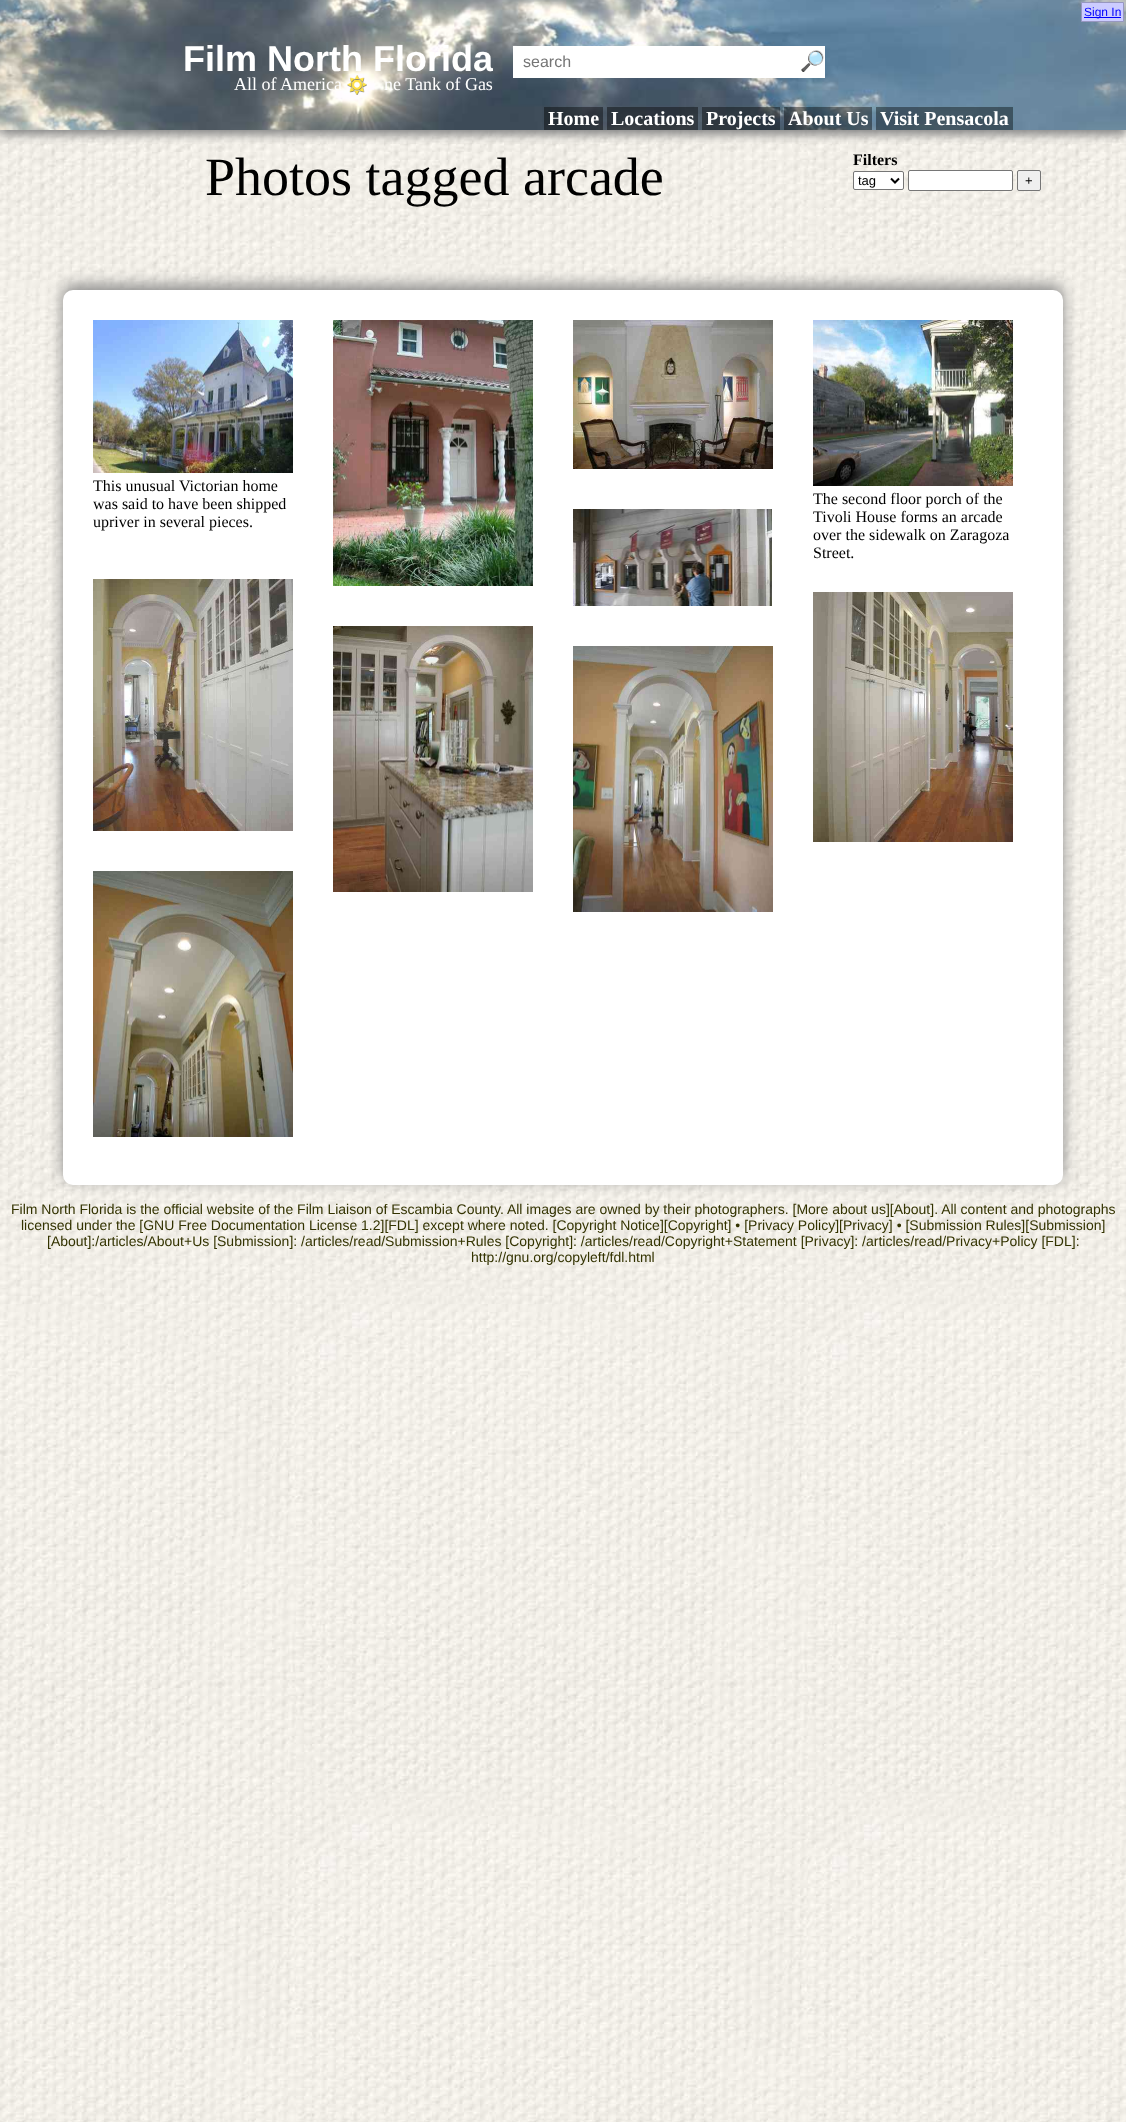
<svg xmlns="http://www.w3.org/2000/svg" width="1126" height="2122">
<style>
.a{font:12px Liberation Sans;fill:#00f}
.b{font:14px Liberation Sans;fill:#330}
.c{font:bold 36px Liberation Sans;fill:#fff}
.d{font:16px Liberation Sans;fill:#757575}
.e{font:20px Noto Color Emoji;fill:#000}
.f{font:18px Liberation Serif;fill:#fff}
.g{font:bold 20px Liberation Serif;fill:#fff}
.h{font:54px Liberation Serif;fill:#000}
.i{font:bold 16px Liberation Serif;fill:#000}
.j{font:13px Liberation Sans;fill:#000}
.k{font:16px Liberation Serif;fill:#000}
</style>
<defs>
<clipPath id="clip1"><path d="M93 38h400v42H93z"/></clipPath>
</defs>
<rect width="100%" height="100%" fill="#fff"/>
<image href="1.png" x="0" y="130" width="1126" height="1992"/>
<path fill="#888" filter="blur(5px)" d="M0 5h1126v130H0z"/>
<image href="2.png" x="0" y="0" width="1126" height="130"/>
<path fill="#ccf" stroke="#9797c0" d="M1081.5 2.5h42v19H1081.5z"/>
<path fill="#00f" d="M1084 17h37v1H1084z"/>
<path fill="#fff" d="M513 46h312v32H513z"/>
<image href="3.png" x="347" y="75" width="20" height="20"/>
<path fill="#00000066" d="M544 107h59v23H544z"/>
<path fill="#00000066" d="M607 107h91v23H607z"/>
<path fill="#00000066" d="M702 107h78v23H702z"/>
<path fill="#00000066" d="M784 107h88v23H784z"/>
<path fill="#00000066" d="M876 107h137v23H876z"/>
<rect fill="#fff" stroke="#767676" x="853.5" y="171.5" width="50" height="18" rx="1.5"/>
<path fill="none" stroke="#000" stroke-width="2" d="M891 178.5l4 4l4-4"/>
<rect fill="#fff" stroke="#767676" x="908.5" y="170.5" width="104" height="20" rx="1.5"/>
<rect fill="#efefef" stroke="#767676" x="1017.5" y="170.5" width="23" height="20" rx="1.5"/>
<rect fill="#888" filter="blur(7.5px)" x="63" y="285" width="1000" height="895" rx="10"/>
<rect fill="#fff" x="63" y="290" width="1000" height="895" rx="10"/>
<image href="4.png" x="333" y="320" width="200" height="266"/>
<image href="5.png" x="573" y="320" width="200" height="149"/>
<image href="6.png" x="93" y="320" width="200" height="153"/>
<image href="7.png" x="573" y="509" width="199" height="97"/>
<image href="8.png" x="813" y="320" width="200" height="166"/>
<image href="9.png" x="93" y="579" width="200" height="252"/>
<image href="10.png" x="333" y="626" width="200" height="266"/>
<image href="11.png" x="573" y="646" width="200" height="266"/>
<image href="12.png" x="813" y="592" width="200" height="250"/>
<image href="13.png" x="93" y="871" width="200" height="266"/>
<text class="a" x="1084" y="16">Sign In</text>
<text class="b" x="11" y="1214">Film North Florida is the official website of the Film Liaison of Escambia County. All images are owned by their photographers. [More about us][About]. All content and photographs</text>
<text class="b" x="21" y="1230">licensed under the [GNU Free Documentation License 1.2][FDL] except where noted. [Copyright Notice][Copyright] • [Privacy Policy][Privacy] • [Submission Rules][Submission]</text>
<text class="b" x="47" y="1246">[About]:/articles/About+Us [Submission]: /articles/read/Submission+Rules [Copyright]: /articles/read/Copyright+Statement [Privacy]: /articles/read/Privacy+Policy [FDL]:</text>
<text class="b" x="471" y="1262">http://gnu.org/copyleft/fdl.html</text>
<g clip-path="url(#clip1)">
<text class="c" x="183" y="71">Film North Florida</text>
</g>
<text class="d" x="523" y="67">search</text>
<text class="e" x="800" y="68">🔎</text>
<text class="f" x="234" y="90">All of America</text>
<text class="f" x="384" y="90">ne Tank of Gas</text>
<text class="g" x="548" y="125">Home</text>
<text class="g" x="611" y="125">Locations</text>
<text class="g" x="706" y="125">Projects</text>
<text class="g" x="788" y="125">About Us</text>
<text class="g" x="880" y="125">Visit Pensacola</text>
<text class="h" x="205" y="195">Photos tagged arcade</text>
<text class="i" x="853" y="165">Filters</text>
<text class="j" x="858" y="185">tag</text>
<text class="j" x="1025" y="185">+</text>
<text class="k" x="93" y="491">This unusual Victorian home</text>
<text class="k" x="93" y="509">was said to have been shipped</text>
<text class="k" x="93" y="527">upriver in several pieces.</text>
<text class="k" x="813" y="504">The second floor porch of the</text>
<text class="k" x="813" y="522">Tivoli House forms an arcade</text>
<text class="k" x="813" y="540">over the sidewalk on Zaragoza</text>
<text class="k" x="813" y="558">Street.</text>
</svg>
